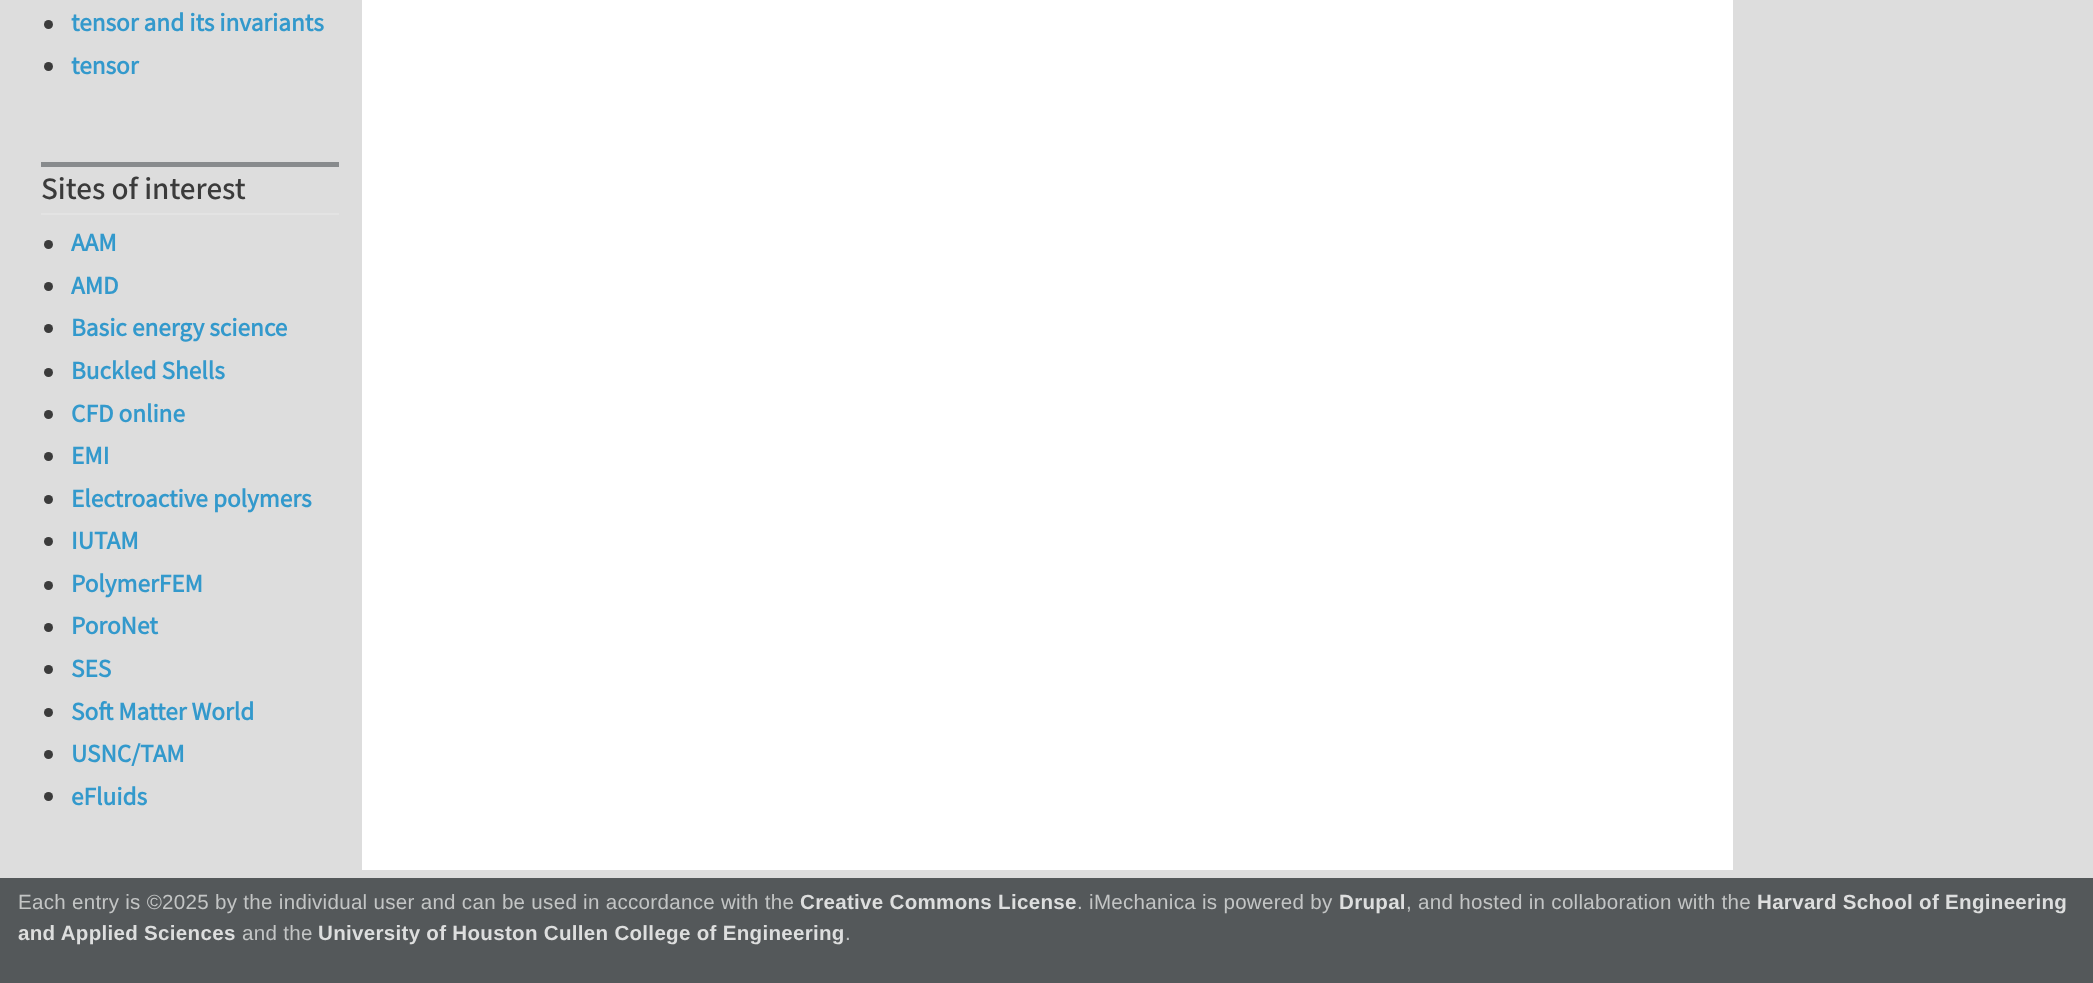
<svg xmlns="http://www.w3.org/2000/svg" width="2093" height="983">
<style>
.a{font:bold 25.25px Source Sans Pro;fill:#39c}
.b{font:500 31.25px 'Source Sans 3';fill:#3b3b3b}
.c{font:20.55px Liberation Sans;letter-spacing:0.3px;fill:#c3c5c5}
.d{font:bold 20.55px Liberation Sans;letter-spacing:0.3px;fill:#dddede}
</style>
<rect width="100%" height="100%" fill="#ddd"/>
<circle fill="#3b3b3b" cx="48.5" cy="24.5" r="4.5"/>
<circle fill="#3b3b3b" cx="48.5" cy="66.5" r="4.5"/>
<path fill="#888b8d" d="M41 162h298v5H41z"/>
<path fill="#e3e3e3" d="M41 213h298v2H41z"/>
<circle fill="#3b3b3b" cx="48.5" cy="244.5" r="4.5"/>
<circle fill="#3b3b3b" cx="48.5" cy="286.5" r="4.5"/>
<circle fill="#3b3b3b" cx="48.5" cy="328.5" r="4.5"/>
<circle fill="#3b3b3b" cx="48.5" cy="372.5" r="4.5"/>
<circle fill="#3b3b3b" cx="48.5" cy="414.5" r="4.5"/>
<circle fill="#3b3b3b" cx="48.5" cy="456.5" r="4.5"/>
<circle fill="#3b3b3b" cx="48.5" cy="499.5" r="4.5"/>
<circle fill="#3b3b3b" cx="48.5" cy="541.5" r="4.5"/>
<circle fill="#3b3b3b" cx="48.5" cy="585.5" r="4.5"/>
<circle fill="#3b3b3b" cx="48.5" cy="627.5" r="4.5"/>
<circle fill="#3b3b3b" cx="48.5" cy="669.5" r="4.5"/>
<circle fill="#3b3b3b" cx="48.5" cy="712.5" r="4.5"/>
<circle fill="#3b3b3b" cx="48.5" cy="754.5" r="4.5"/>
<circle fill="#3b3b3b" cx="48.5" cy="796.5" r="4.5"/>
<path fill="#fff" d="M362 0h1371v870H362z"/>
<path fill="#54585a" d="M0 878h2093v105H0z"/>
<text class="a" x="71" y="31">tensor and its invariants</text>
<text class="a" x="71" y="74">tensor</text>
<text class="b" x="41" y="199">Sites of interest</text>
<text class="a" x="71" y="251">AAM</text>
<text class="a" x="71" y="294">AMD</text>
<text class="a" x="71" y="336">Basic energy science</text>
<text class="a" x="71" y="379">Buckled Shells</text>
<text class="a" x="71" y="422">CFD online</text>
<text class="a" x="71" y="464">EMI</text>
<text class="a" x="71" y="507">Electroactive polymers</text>
<text class="a" x="71" y="549">IUTAM</text>
<text class="a" x="71" y="592">PolymerFEM</text>
<text class="a" x="71" y="634">PoroNet</text>
<text class="a" x="71" y="677">SES</text>
<text class="a" x="71" y="720">Soft Matter World</text>
<text class="a" x="71" y="762">USNC/TAM</text>
<text class="a" x="71" y="805">eFluids</text>
<text class="c" x="18" y="909">Each entry is ©2025 by the individual user and can be used in accordance with the</text>
<text class="d" x="800" y="909">Creative Commons License</text>
<text class="c" x="1077" y="909">. iMechanica is powered by</text>
<text class="d" x="1339" y="909">Drupal</text>
<text class="c" x="1406" y="909">, and hosted in collaboration with the</text>
<text class="d" x="1757" y="909">Harvard School of Engineering</text>
<text class="d" x="18" y="940">and Applied Sciences</text>
<text class="c" x="242" y="940">and the</text>
<text class="d" x="318" y="940">University of Houston Cullen College of Engineering</text>
<text class="c" x="845" y="940">.</text>
</svg>
